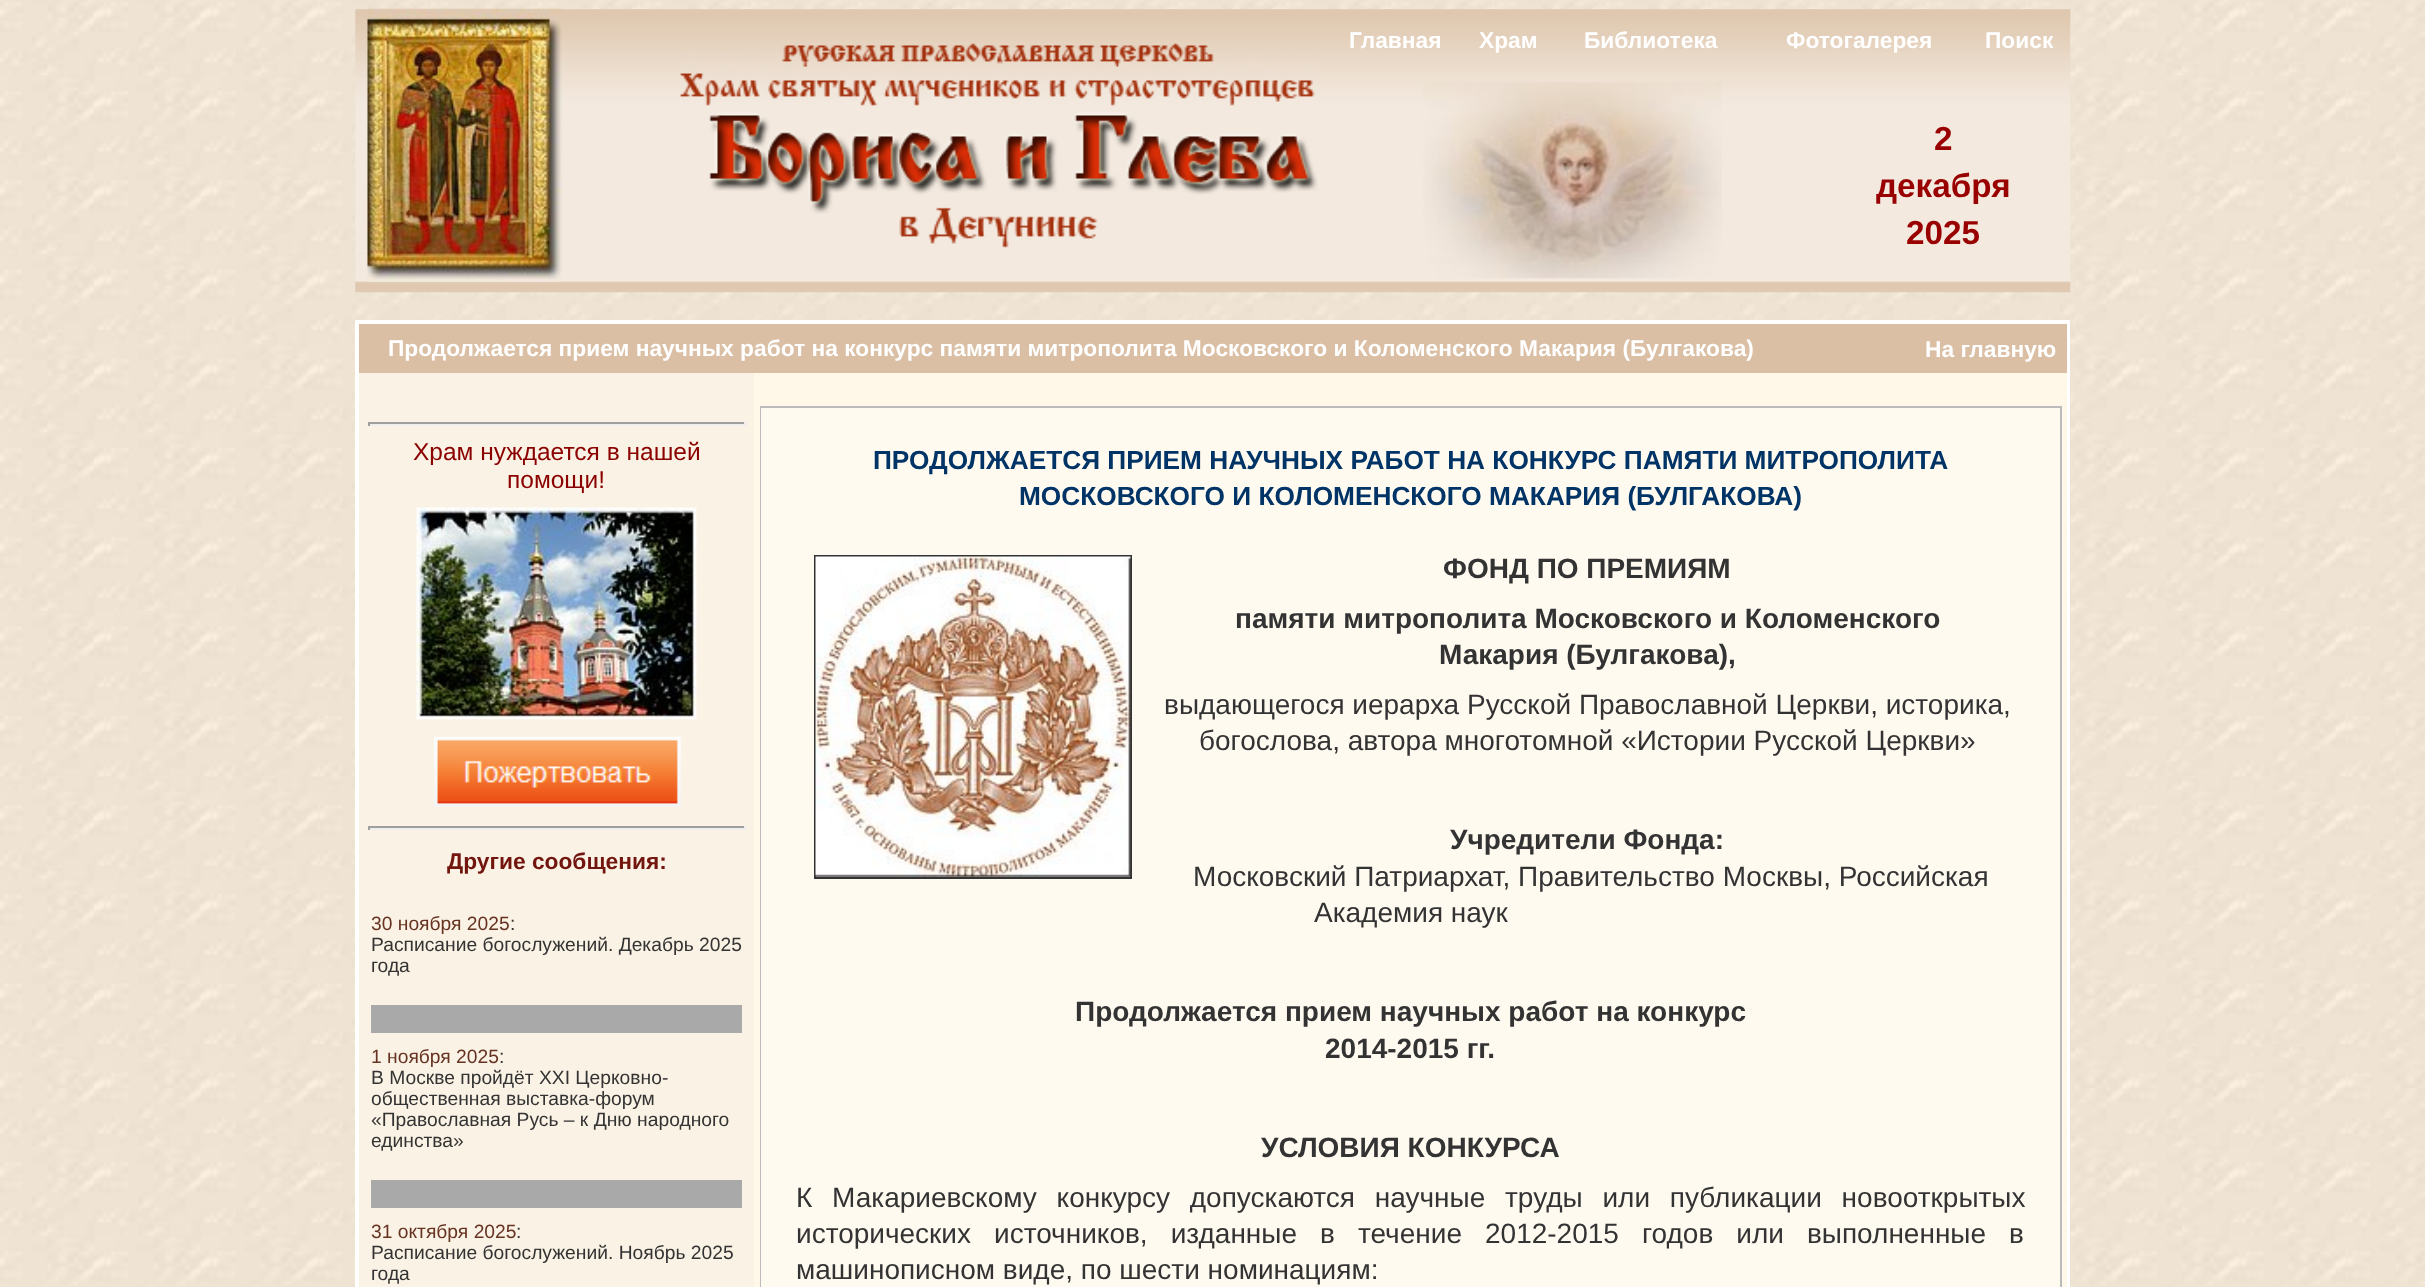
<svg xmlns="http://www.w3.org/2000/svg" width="2425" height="1287">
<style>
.a{font:bold 22.75px Liberation Sans;fill:#fff}
.b{font:bold 33.25px Liberation Sans;fill:#900}
.c{font:24.5px Liberation Sans;fill:#8b0000}
.d{font:bold 22.75px Liberation Sans;fill:#72150e}
.e{font:19.25px Liberation Sans;fill:#632}
.f{font:19.25px Liberation Sans;fill:#333}
.g{font:bold 26.25px Liberation Sans;fill:#036}
.h{font:bold 28px Liberation Sans;fill:#333}
.i{font:28px Liberation Sans;fill:#333}
</style>
<rect width="100%" height="100%" fill="#fff"/>
<image href="1.png" x="0" y="0" width="2425" height="1287"/>
<image href="2.png" x="355" y="9" width="1716" height="284"/>
<image href="3.png" x="367" y="8" width="195" height="274"/>
<image href="4.png" x="680" y="43" width="638" height="205"/>
<image href="5.png" x="1423" y="82" width="299" height="197"/>
<path fill="#fff" d="M355 320h1715v967H355z"/>
<path fill="#dabfa5" d="M359 324h1708v49H359z"/>
<path fill="#faf2e4" d="M359 373h395v914H359z"/>
<path fill="#9f9f9f" d="M368 422h378v2H368z"/>
<path fill="#eee" d="M744 422h2v4H744z"/>
<path fill="#eee" d="M368 424h378v2H368z"/>
<path fill="#9f9f9f" d="M368 422h2v4H368z"/>
<image href="6.png" x="416" y="507" width="281" height="213"/>
<image href="7.png" x="434" y="736" width="247" height="71"/>
<path fill="#9f9f9f" d="M368 826h378v2H368z"/>
<path fill="#eee" d="M744 826h2v4H744z"/>
<path fill="#eee" d="M368 828h378v2H368z"/>
<path fill="#9f9f9f" d="M368 826h2v4H368z"/>
<path fill="#a9a9a9" d="M371 1005h371v28H371z"/>
<path fill="#a9a9a9" d="M371 1180h371v28H371z"/>
<path fill="#fff8e8" d="M754 373h1313v914H754z"/>
<path fill="none" stroke="#bbb" stroke-width="2" d="M761 407h1300v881H761z"/>
<path fill="#fffaf0" d="M761 408h1299v879H761z"/>
<path fill="none" stroke="#333" stroke-width="2" d="M815 556h316v322H815z"/>
<image href="8.png" x="815" y="556" width="316" height="321"/>
<text class="a" x="1349" y="48">Главная</text>
<text class="a" x="1479" y="48">Храм</text>
<text class="a" x="1584" y="48">Библиотека</text>
<text class="a" x="1786" y="48">Фотогалерея</text>
<text class="a" x="1985" y="48">Поиск</text>
<text class="b" x="1934" y="150">2</text>
<text class="b" x="1876" y="197">декабря</text>
<text class="b" x="1906" y="244">2025</text>
<text class="a" x="388" y="356">Продолжается прием научных работ на конкурс памяти митрополита Московского и Коломенского Макария (Булгакова)</text>
<text class="a" x="1925" y="357">На главную</text>
<text class="c" x="413" y="460">Храм нуждается в нашей</text>
<text class="c" x="507" y="488">помощи!</text>
<text class="d" x="447" y="869">Другие сообщения:</text>
<text class="e" x="371" y="930">30 ноября 2025</text>
<text class="f" x="510" y="930">:</text>
<text class="f" x="371" y="951">Расписание богослужений. Декабрь 2025</text>
<text class="f" x="371" y="972">года</text>
<text class="e" x="371" y="1063">1 ноября 2025</text>
<text class="f" x="499" y="1063">:</text>
<text class="f" x="371" y="1084">В Москве пройдёт XXI Церковно-</text>
<text class="f" x="371" y="1105">общественная выставка-форум</text>
<text class="f" x="371" y="1126">«Православная Русь – к Дню народного</text>
<text class="f" x="371" y="1147">единства»</text>
<text class="e" x="371" y="1238">31 октября 2025</text>
<text class="f" x="516" y="1238">:</text>
<text class="f" x="371" y="1259">Расписание богослужений. Ноябрь 2025</text>
<text class="f" x="371" y="1280">года</text>
<text class="g" x="873" y="469">ПРОДОЛЖАЕТСЯ ПРИЕМ НАУЧНЫХ РАБОТ НА КОНКУРС ПАМЯТИ МИТРОПОЛИТА</text>
<text class="g" x="1019" y="505">МОСКОВСКОГО И КОЛОМЕНСКОГО МАКАРИЯ (БУЛГАКОВА)</text>
<text class="h" x="1443" y="578">ФОНД ПО ПРЕМИЯМ</text>
<text class="h" x="1235" y="628">памяти митрополита Московского и Коломенского</text>
<text class="h" x="1439" y="664">Макария (Булгакова),</text>
<text class="i" x="1164" y="714">выдающегося иерарха Русской Православной Церкви, историка,</text>
<text class="i" x="1199" y="750">богослова, автора многотомной «Истории Русской Церкви»</text>
<text class="h" x="1450" y="849">Учредители Фонда:</text>
<text class="i" x="1193" y="886">Московский Патриархат, Правительство Москвы, Российская</text>
<text class="i" x="1314" y="922">Академия наук</text>
<text class="h" x="1075" y="1021">Продолжается прием научных работ на конкурс</text>
<text class="h" x="1325" y="1058">2014-2015 гг.</text>
<text class="h" x="1261" y="1157">УСЛОВИЯ КОНКУРСА</text>
<text class="i" x="796" y="1207" word-spacing="12">К Макариевскому конкурсу допускаются научные труды или публикации новооткрытых</text>
<text class="i" x="796" y="1243" word-spacing="15.25">исторических источников, изданные в течение 2012-2015 годов или выполненные в</text>
<text class="i" x="796" y="1279">машинописном виде, по шести номинациям:</text>
</svg>
